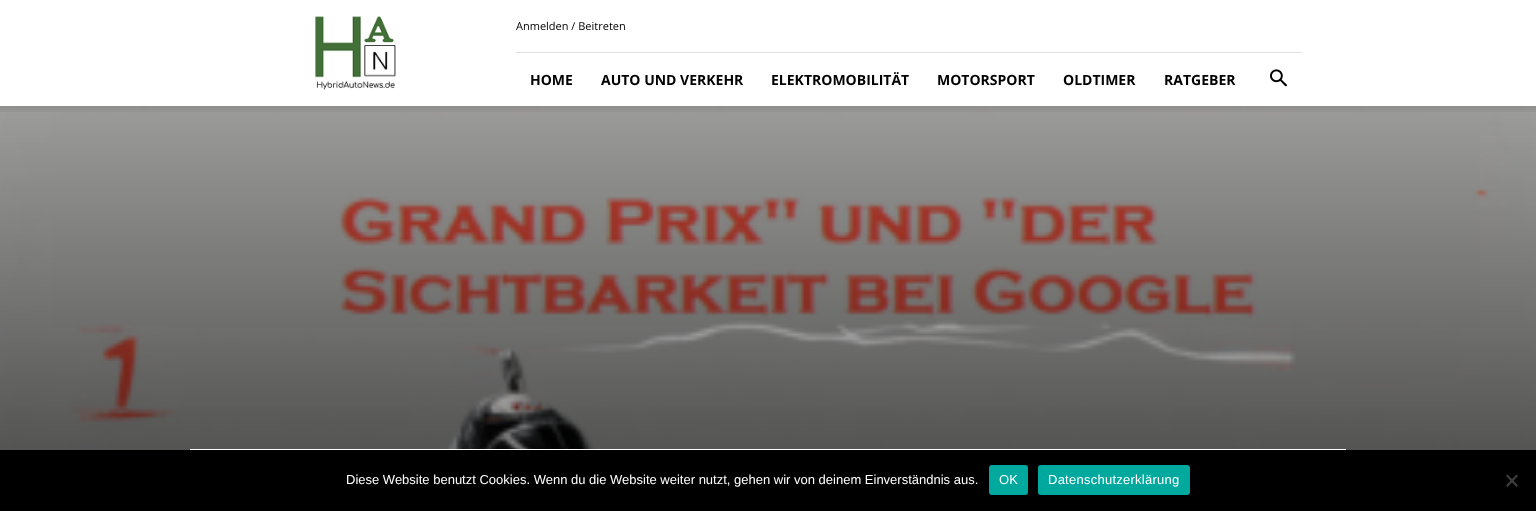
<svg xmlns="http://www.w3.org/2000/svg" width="1536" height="511">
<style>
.a{font:11px Open Sans;fill:#000}
.b{font:bold 14px Open Sans;fill:#000}
.c{font:13px Liberation Sans;fill:#fff}
.d{font:13px Liberation Sans;letter-spacing:0.25px;fill:#fff}
</style>
<rect width="100%" height="100%" fill="#fff"/>
<image href="1.png" x="315" y="16" width="81" height="74"/>
<path fill="#e0e0e0" d="M516 52h786v1H516z"/>
<image href="2.png" x="1270" y="69" width="17" height="18"/>
<image href="4.png" x="0" y="106" width="1536" height="344"/>
<image href="3.png" x="0" y="106" width="1536" height="6"/>
<path fill="#fff" d="M190 449h1156v1H190z"/>
<path fill="#000" d="M0 450h1536v61H0z"/>
<rect fill="#00a99d" x="989" y="465" width="39" height="30" rx="3"/>
<rect fill="#00a99d" x="1038" y="465" width="152" height="30" rx="3"/>
<path fill="#404040" d="M1516.5 474.5l1.5 1.5l-10.5 11l-1.5-1.5z"/>
<path fill="#404040" d="M1506 476l1.5-1.5l10.5 11l-1.5 1.5z"/>
<text class="a" x="516" y="30">Anmelden / Beitreten</text>
<text class="b" x="530" y="85">HOME</text>
<text class="b" x="601" y="85">AUTO UND VERKEHR</text>
<text class="b" x="771" y="85">ELEKTROMOBILITÄT</text>
<text class="b" x="937" y="85">MOTORSPORT</text>
<text class="b" x="1063" y="85">OLDTIMER</text>
<text class="b" x="1164" y="85">RATGEBER</text>
<text class="c" x="346" y="484">Diese Website benutzt Cookies. Wenn du die Website weiter nutzt, gehen wir von deinem Einverständnis aus.</text>
<text class="d" x="999" y="484">OK</text>
<text class="d" x="1048" y="484">Datenschutzerklärung</text>
</svg>
